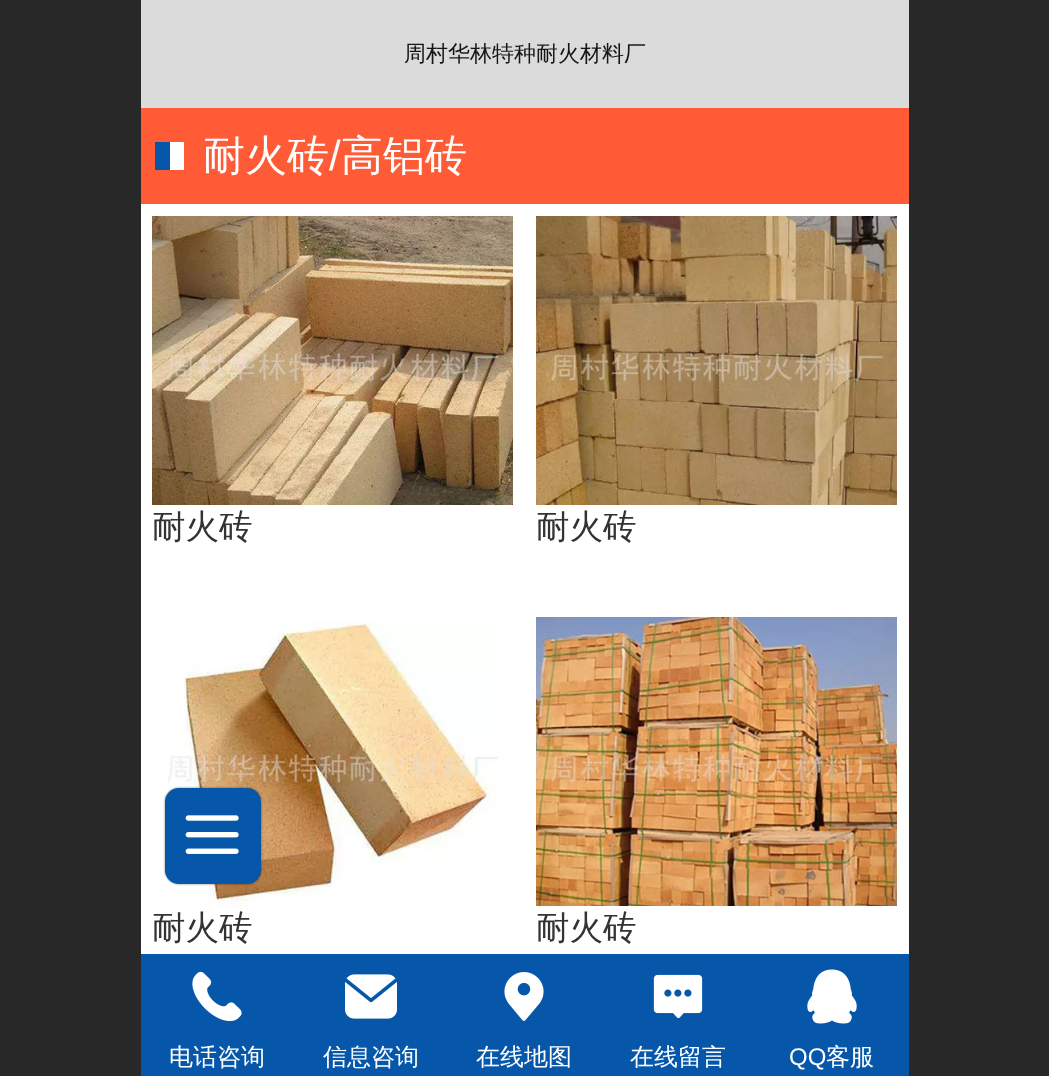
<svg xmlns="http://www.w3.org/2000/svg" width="1049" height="1076">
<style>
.a{font:500 22px WenQuanYi Zen Hei;fill:#161616}
.b{font:500 42px WenQuanYi Zen Hei;fill:#fff}
.c{font:42px Liberation Sans;fill:#fff}
.d{font:500 33.5px WenQuanYi Zen Hei;fill:#333}
.e{font:500 24px WenQuanYi Zen Hei;fill:#fff}
.f{font:24px Liberation Sans;fill:#fff}
</style>
<rect width="100%" height="100%" fill="#fff"/>
<path fill="#282828" d="M0 0h141v1076H0z"/>
<path fill="#dbdbdb" d="M141 0h768v108H141z"/>
<image href="5.png" x="168" y="621" width="331" height="285"/>
<rect fill="#00000080" filter="blur(1px)" x="165" y="788" width="96" height="96" rx="14"/>
<rect fill="#0657a9" x="165" y="788" width="96" height="96" rx="14"/>
<image href="1.png" x="185" y="815" width="54" height="39"/>
<image href="2.png" x="141" y="108" width="768" height="96"/>
<path fill="#0657a9" d="M155 142h15v28H155z"/>
<path fill="#fff" d="M170 142h14v28H170z"/>
<image href="3.png" x="152" y="216" width="361" height="289"/>
<image href="4.png" x="536" y="216" width="361" height="289"/>
<image href="6.png" x="536" y="617" width="361" height="289"/>
<path fill="#0657a9" d="M141 954h768v122H141z"/>
<image href="7.png" x="192" y="971" width="50" height="51"/>
<image href="8.png" x="345" y="974" width="52" height="45"/>
<image href="9.png" x="504" y="972" width="40" height="49"/>
<image href="10.png" x="653" y="974" width="50" height="45"/>
<image href="11.png" x="807" y="969" width="50" height="55"/>
<path fill="#282828" d="M909 0h140v1076H909z"/>
<text class="a" x="404" y="61">周村华林特种耐火材料厂</text>
<text class="b" x="203" y="170">耐火砖</text>
<text class="c" x="329" y="170">/</text>
<text class="b" x="341" y="170">高铝砖</text>
<text class="d" x="152" y="538">耐火砖</text>
<text class="d" x="536" y="538">耐火砖</text>
<text class="d" x="152" y="939">耐火砖</text>
<text class="d" x="536" y="939">耐火砖</text>
<text class="e" x="169" y="1065">电话咨询</text>
<text class="e" x="323" y="1065">信息咨询</text>
<text class="e" x="476" y="1065">在线地图</text>
<text class="e" x="630" y="1065">在线留言</text>
<text class="f" x="789" y="1065">QQ</text>
<text class="e" x="826" y="1065">客服</text>
</svg>
